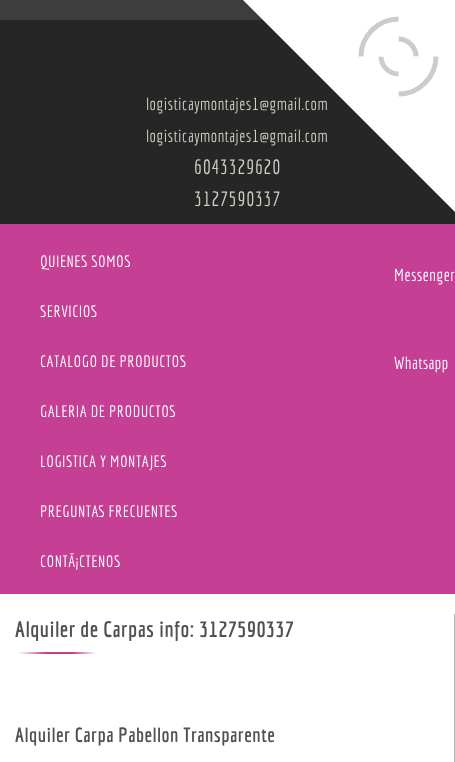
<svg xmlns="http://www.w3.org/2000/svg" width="455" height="762">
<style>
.a{font:17px Economica;letter-spacing:0.5px;fill:#cdcdc3}
.b{font:20px Economica;letter-spacing:0.5px;fill:#cdcdc3}
.c{font:16px Economica;letter-spacing:0.5px;fill:#fff}
.d{font:17px Economica;letter-spacing:0.5px;fill:#fff}
.e{font:bold 22px Economica;letter-spacing:0.5px;fill:#515151}
.f{font:bold 20px Economica;letter-spacing:0.5px;fill:#515151}
</style>
<defs>
<linearGradient id="g1" gradientUnits="userSpaceOnUse" x1="15" y1="653" x2="100" y2="653"><stop offset="0" stop-color="#fff"/><stop offset="0.04" stop-color="#fff"/><stop offset="0.36" stop-color="#c54095"/><stop offset="0.68" stop-color="#c54095"/><stop offset="0.96" stop-color="#fff"/><stop offset="1" stop-color="#fff"/></linearGradient>
</defs>
<rect width="100%" height="100%" fill="#fff"/>
<path fill="#262626" d="M0 20h455v204H0z"/>
<path fill="#3d3d3d" d="M0 0h263v20H0z"/>
<path fill="#c54095" d="M0 224h455v370H0z"/>
<path fill="#b2b2b2" d="M454 614h1v148H454z"/>
<path fill="url(#g1)" d="M15 652h85v2H15z"/>
<text class="a" x="146" y="110">logisticaymontajes1@gmail.com</text>
<text class="a" x="146" y="142">logisticaymontajes1@gmail.com</text>
<text class="b" x="194" y="174">6043329620</text>
<text class="b" x="194" y="206">3127590337</text>
<path fill="#fff" d="M455-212l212 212l-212 212l-212-212z"/>
<path fill="none" stroke="#ccc" stroke-width="5" d="M436 56.5c0 20.5-17 37.5-37.5 37.5"/>
<path fill="none" stroke="#fff" stroke-width="5" d="M398.5 94c-20.5 0-37.5-17-37.5-37.5"/>
<path fill="none" stroke="#ccc" stroke-width="5" d="M361 56.5c0-20.5 17-37.5 37.5-37.5m0 20c9.5 0 17.5 8 17.5 17.5"/>
<path fill="none" stroke="#fff" stroke-width="5" d="M416 56.5c0 9.5-8 17.5-17.5 17.5"/>
<path fill="none" stroke="#ccc" stroke-width="5" d="M398.5 74c-9.5 0-17.5-8-17.5-17.5"/>
<path fill="none" stroke="#fff" stroke-width="5" d="M381 56.5c0-9.5 8-17.5 17.5-17.5"/>
<text class="c" x="40" y="267">QUIENES SOMOS</text>
<text class="c" x="40" y="317">SERVICIOS</text>
<text class="c" x="40" y="367">CATALOGO DE PRODUCTOS</text>
<text class="c" x="40" y="417">GALERIA DE PRODUCTOS</text>
<text class="c" x="40" y="467">LOGISTICA Y MONTAJES</text>
<text class="c" x="40" y="517">PREGUNTAS FRECUENTES</text>
<text class="c" x="40" y="567">CONTÃ¡CTENOS</text>
<text class="d" x="394" y="281">Messenger</text>
<text class="d" x="394" y="369">Whatsapp</text>
<text class="e" x="15" y="637">Alquiler de Carpas info: 3127590337</text>
<text class="f" x="15" y="742">Alquiler Carpa Pabellon Transparente</text>
</svg>
